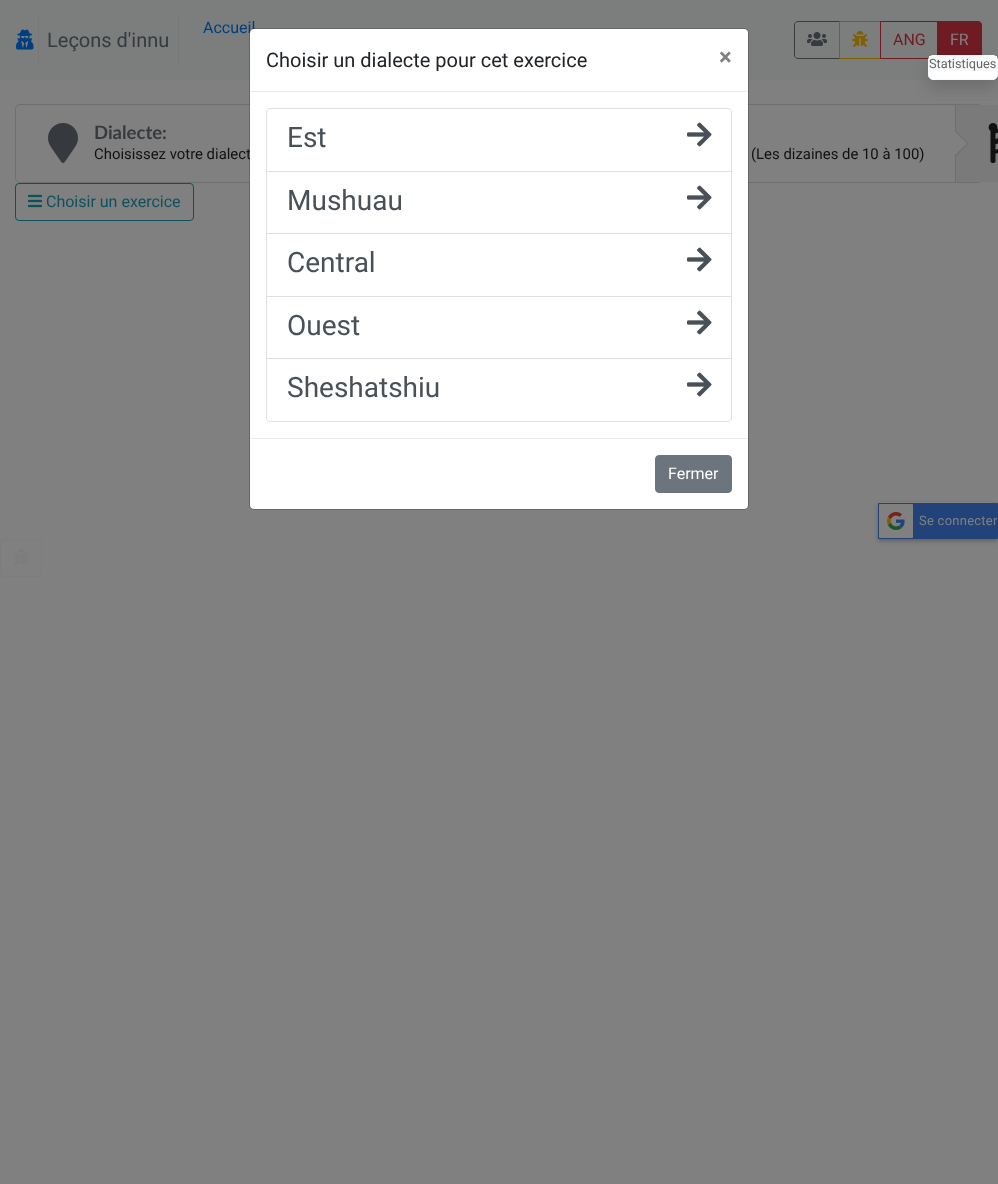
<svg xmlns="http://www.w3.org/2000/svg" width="998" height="1184">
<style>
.a{font:20px Roboto;fill:#363b3f}
.b{font:16px Roboto;fill:#003e80}
.c{font:16px Roboto;fill:#6e1b23}
.d{font:16px Roboto;fill:#808080}
.e{font:bold 18.5px Lato;fill:#363b3f}
.f{font:14.9px Roboto;fill:#111}
.g{font:28px Roboto;fill:#495057}
.h{font:bold 24px Roboto;fill:#808080}
.i{font:16px Roboto;fill:#fff}
.j{font:20px Roboto;fill:#212529}
.k{font:16px Roboto;fill:#0c515c}
.l{font:12.75px Roboto;fill:#666}
.m{font:13px Roboto;letter-spacing:0.25px;fill:#808080}
</style>
<rect width="100%" height="100%" fill="#808080"/>
<path fill="#7c7d7d" d="M0 0h998v80H0z"/>
<image href="1.png" x="16" y="29" width="18" height="21"/>
<path fill="#777" d="M178 17h1v46H178z"/>
<path fill="#777" d="M38 17h1v46H38z"/>
<path fill="none" stroke="#363b3f" d="M798 21.5h41.5v37h-41.5c-2 0-3.5-1.5-3.5-3.5v-30c0-2 1.5-3.5 3.5-3.5z"/>
<image href="2.png" x="807" y="32" width="20" height="14"/>
<path fill="none" stroke="#806104" d="M839.5 21.5h41v37H839.5z"/>
<image href="3.png" x="852" y="31" width="16" height="16"/>
<path fill="none" stroke="#6e1b23" d="M880.5 21.5h57v37H880.5z"/>
<path fill="#6e1b23" stroke="#6e1b23" d="M937.5 21.5h40.5c2 0 3.5 1.5 3.5 3.5v30c0 2-1.5 3.5-3.5 3.5h-40.5z"/>
<rect fill="none" stroke="#6f6f6f" x="15.5" y="104.5" width="967" height="78" rx="4.5"/>
<image href="5.png" x="48" y="123" width="30" height="40"/>
<path fill="#6f6f6f" d="M955 105h1v77H955z"/>
<path fill="#7a7a7b" d="M956 105h42v77H956z"/>
<path fill="#808080" d="M942.5 143.5l13-13l13 13l-13 13z"/>
<path fill="#11121326" d="M955.5 130.5l13 13h-1.5l-12.5-12.5z"/>
<path fill="#11121326" d="M968.5 143.5l-13 13l-1-1l12.5-12z"/>
<image href="6.png" x="988" y="123" width="10" height="40"/>
<rect fill="none" stroke="#0c515c" x="15.5" y="183.5" width="178" height="37" rx="3.5"/>
<image href="7.png" x="28" y="194" width="14" height="14"/>
<rect fill="#00000026" filter="blur(8px)" x="928" y="63" width="70" height="25" rx="5"/>
<rect fill="#fff" stroke="#f8f9fa" x="928.5" y="55.5" width="69" height="24" rx="4.5"/>
<path fill="#f8f9fa" d="M929 56h68v15H929z"/>
<rect fill="#00000040" filter="blur(2px)" x="878" y="505" width="120" height="36" rx="1"/>
<rect fill="#21437a" x="878" y="503" width="120" height="36" rx="1"/>
<rect fill="#808080" x="879" y="504" width="34" height="34" rx="1"/>
<image href="8.png" x="887" y="512" width="18" height="18"/>
<rect fill="none" stroke="#7c7d7d" x="0.5" y="539.5" width="41" height="37" rx="3.5"/>
<image href="9.png" x="13" y="549" width="16" height="16"/>
<text class="a" x="47" y="47">Leçons d'innu</text>
<text class="b" x="203" y="33">Accueil</text>
<text class="c" x="893" y="45">ANG</text>
<text class="d" x="950" y="45">FR</text>
<text class="e" x="94" y="139">Dialecte:</text>
<text class="f" x="94" y="159">Choisissez votre dialect</text>
<rect fill="#fff" x="250" y="29" width="498" height="480" rx="4"/>
<rect fill="none" stroke="#00000033" x="249.5" y="28.5" width="499" height="481" rx="4.5"/>
<path fill="none" stroke="#dfdfdf" d="M270 108.5h458c2 0 3.5 1.5 3.5 3.5v59.5h-465v-59.5c0-2 1.5-3.5 3.5-3.5z"/>
<path fill="none" stroke="#dfdfdf" d="M266.5 171.5h465v62H266.5z"/>
<path fill="none" stroke="#dfdfdf" d="M266.5 233.5h465v63H266.5z"/>
<path fill="none" stroke="#dfdfdf" d="M266.5 296.5h465v62H266.5z"/>
<path fill="#fff" stroke="#dfdfdf" d="M266.5 358.5h465v59.5c0 2-1.5 3.5-3.5 3.5h-458c-2 0-3.5-1.5-3.5-3.5z"/>
<text class="g" x="287" y="397">Sheshatshiu</text>
<image href="4.png" x="687" y="372" width="25" height="25"/>
<text class="g" x="287" y="335">Ouest</text>
<image href="4.png" x="687" y="310" width="25" height="25"/>
<text class="g" x="287" y="272">Central</text>
<image href="4.png" x="687" y="247" width="25" height="25"/>
<text class="g" x="287" y="210">Mushuau</text>
<image href="4.png" x="687" y="185" width="25" height="25"/>
<text class="g" x="287" y="147">Est</text>
<image href="4.png" x="687" y="122" width="25" height="25"/>
<text class="h" x="719" y="65">×</text>
<rect fill="#6c757d" stroke="#6c757d" x="655.5" y="455.5" width="76" height="37" rx="3.5"/>
<text class="i" x="668" y="479">Fermer</text>
<path fill="#e9ecef" d="M250 438h498v1H250z"/>
<text class="j" x="266" y="67">Choisir un dialecte pour cet exercice</text>
<path fill="#e9ecef" d="M250 91h498v1H250z"/>
<text class="f" x="751" y="159">(Les dizaines de 10 à 100)</text>
<text class="k" x="46" y="207">Choisir un exercice</text>
<text class="l" x="929" y="68">Statistiques</text>
<text class="m" x="919" y="525">Se connecter</text>
</svg>
